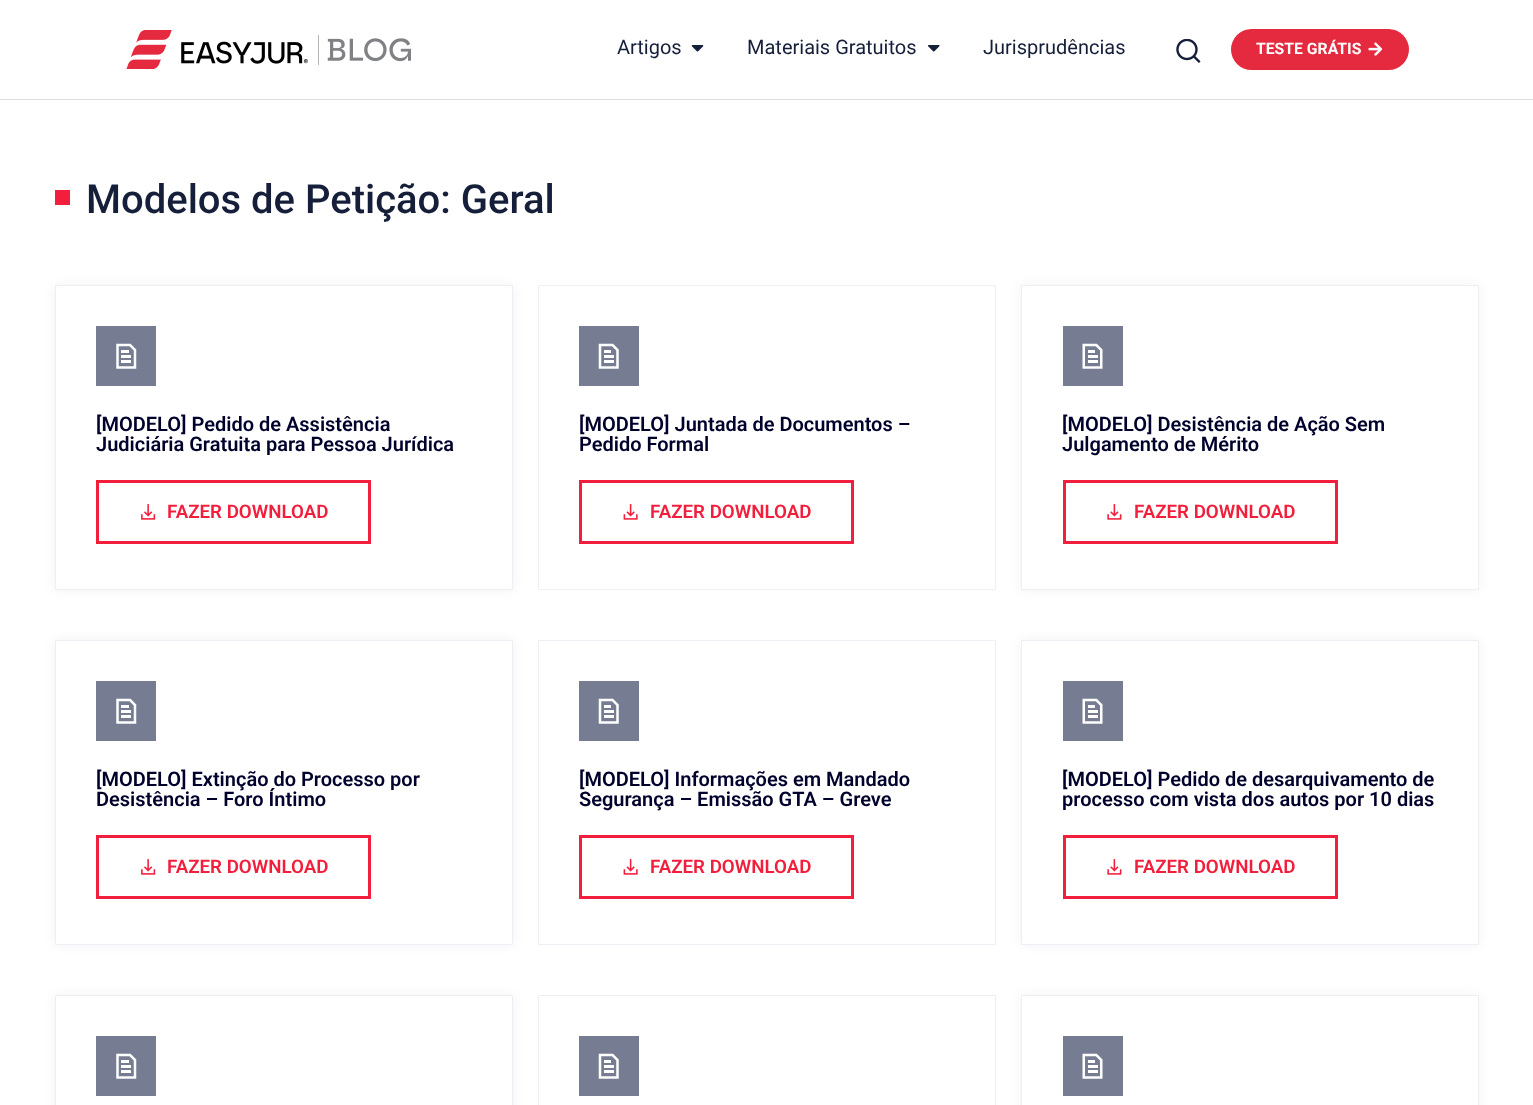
<svg xmlns="http://www.w3.org/2000/svg" width="1533" height="1105">
<style>
.a{font:20px Roboto;fill:#161f3a}
.b{font:bold 15.75px Roboto;fill:#fff}
.c{font:500 40px Roboto;fill:#161f3a}
.d{font:600 20px Roboto;fill:#00002c}
.e{font:600 18.75px Roboto;fill:#f21f3c}
</style>
<rect width="100%" height="100%" fill="#fff"/>
<path fill="#ddd" d="M0 99h1533v1H0z"/>
<image href="1.png" x="126" y="30" width="285" height="39"/>
<image href="2.png" x="691" y="45" width="13" height="7"/>
<image href="3.png" x="928" y="45" width="12" height="7"/>
<image href="4.png" x="1176" y="39" width="25" height="24"/>
<rect fill="#e5293f" x="1231" y="29" width="178" height="41" rx="20.5"/>
<image href="5.png" x="1368" y="42" width="15" height="14"/>
<path fill="#f21f3c" d="M55 190h15v15H55z"/>
<path fill="#0000000d" filter="blur(6px)" d="M55 285h458v305H55z"/>
<path fill="#fff" stroke="#edeff4" d="M55.5 285.5h457v304H55.5z"/>
<path fill="#767d92" d="M96 326h60v60H96z"/>
<image href="6.png" x="116" y="343" width="21" height="26"/>
<path fill="none" stroke="#f21f3c" stroke-width="3" d="M97.5 481.5h272v61H97.5z"/>
<image href="7.png" x="141" y="504" width="15" height="16"/>
<path fill="none" stroke="#edeff4" d="M538.5 285.5h457v304H538.5z"/>
<path fill="#767d92" d="M579 326h60v60H579z"/>
<image href="8.png" x="598" y="343" width="21" height="26"/>
<path fill="none" stroke="#f21f3c" stroke-width="3" d="M580.5 481.5h272v61H580.5z"/>
<image href="9.png" x="623" y="504" width="15" height="16"/>
<path fill="#0000000d" filter="blur(6px)" d="M1021 285h458v305H1021z"/>
<path fill="#fff" stroke="#edeff4" d="M1021.5 285.5h457v304H1021.5z"/>
<path fill="#767d92" d="M1063 326h60v60H1063z"/>
<image href="10.png" x="1082" y="343" width="21" height="26"/>
<path fill="none" stroke="#f21f3c" stroke-width="3" d="M1064.5 481.5h272v61H1064.5z"/>
<image href="11.png" x="1107" y="504" width="15" height="16"/>
<path fill="#0000000d" filter="blur(6px)" d="M55 640h458v305H55z"/>
<path fill="#fff" stroke="#edeff4" d="M55.5 640.5h457v304H55.5z"/>
<path fill="#767d92" d="M96 681h60v60H96z"/>
<image href="6.png" x="116" y="698" width="21" height="26"/>
<path fill="none" stroke="#f21f3c" stroke-width="3" d="M97.5 836.5h272v61H97.5z"/>
<image href="7.png" x="141" y="859" width="15" height="16"/>
<path fill="none" stroke="#edeff4" d="M538.5 640.5h457v304H538.5z"/>
<path fill="#767d92" d="M579 681h60v60H579z"/>
<image href="8.png" x="598" y="698" width="21" height="26"/>
<path fill="none" stroke="#f21f3c" stroke-width="3" d="M580.5 836.5h272v61H580.5z"/>
<image href="9.png" x="623" y="859" width="15" height="16"/>
<path fill="#0000000d" filter="blur(6px)" d="M1021 640h458v305H1021z"/>
<path fill="#fff" stroke="#edeff4" d="M1021.5 640.5h457v304H1021.5z"/>
<path fill="#767d92" d="M1063 681h60v60H1063z"/>
<image href="10.png" x="1082" y="698" width="21" height="26"/>
<path fill="none" stroke="#f21f3c" stroke-width="3" d="M1064.5 836.5h272v61H1064.5z"/>
<image href="11.png" x="1107" y="859" width="15" height="16"/>
<path fill="#0000000d" filter="blur(6px)" d="M55 995h458v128H55z"/>
<path fill="#fff" stroke="#edeff4" d="M55.5 995.5h457v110H55.5z"/>
<path fill="#767d92" d="M96 1036h60v60H96z"/>
<image href="6.png" x="116" y="1053" width="21" height="26"/>
<path fill="none" stroke="#edeff4" d="M538.5 995.5h457v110H538.5z"/>
<path fill="#767d92" d="M579 1036h60v60H579z"/>
<image href="8.png" x="598" y="1053" width="21" height="26"/>
<path fill="#0000000d" filter="blur(6px)" d="M1021 995h458v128H1021z"/>
<path fill="#fff" stroke="#edeff4" d="M1021.5 995.5h457v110H1021.5z"/>
<path fill="#767d92" d="M1063 1036h60v60H1063z"/>
<image href="10.png" x="1082" y="1053" width="21" height="26"/>
<text class="a" x="617" y="54">Artigos</text>
<text class="a" x="747" y="54">Materiais Gratuitos</text>
<text class="a" x="983" y="54">Jurisprudências</text>
<text class="b" x="1256" y="54">TESTE GRÁTIS</text>
<text class="c" x="86" y="213">Modelos de Petição: Geral</text>
<text class="d" x="96" y="431">[MODELO] Pedido de Assistência</text>
<text class="d" x="96" y="451">Judiciária Gratuita para Pessoa Jurídica</text>
<text class="e" x="167" y="518">FAZER DOWNLOAD</text>
<text class="d" x="579" y="431">[MODELO] Juntada de Documentos –</text>
<text class="d" x="579" y="451">Pedido Formal</text>
<text class="e" x="650" y="518">FAZER DOWNLOAD</text>
<text class="d" x="1062" y="431">[MODELO] Desistência de Ação Sem</text>
<text class="d" x="1062" y="451">Julgamento de Mérito</text>
<text class="e" x="1134" y="518">FAZER DOWNLOAD</text>
<text class="d" x="96" y="786">[MODELO] Extinção do Processo por</text>
<text class="d" x="96" y="806">Desistência – Foro Íntimo</text>
<text class="e" x="167" y="873">FAZER DOWNLOAD</text>
<text class="d" x="579" y="786">[MODELO] Informações em Mandado</text>
<text class="d" x="579" y="806">Segurança – Emissão GTA – Greve</text>
<text class="e" x="650" y="873">FAZER DOWNLOAD</text>
<text class="d" x="1062" y="786">[MODELO] Pedido de desarquivamento de</text>
<text class="d" x="1062" y="806">processo com vista dos autos por 10 dias</text>
<text class="e" x="1134" y="873">FAZER DOWNLOAD</text>
</svg>
